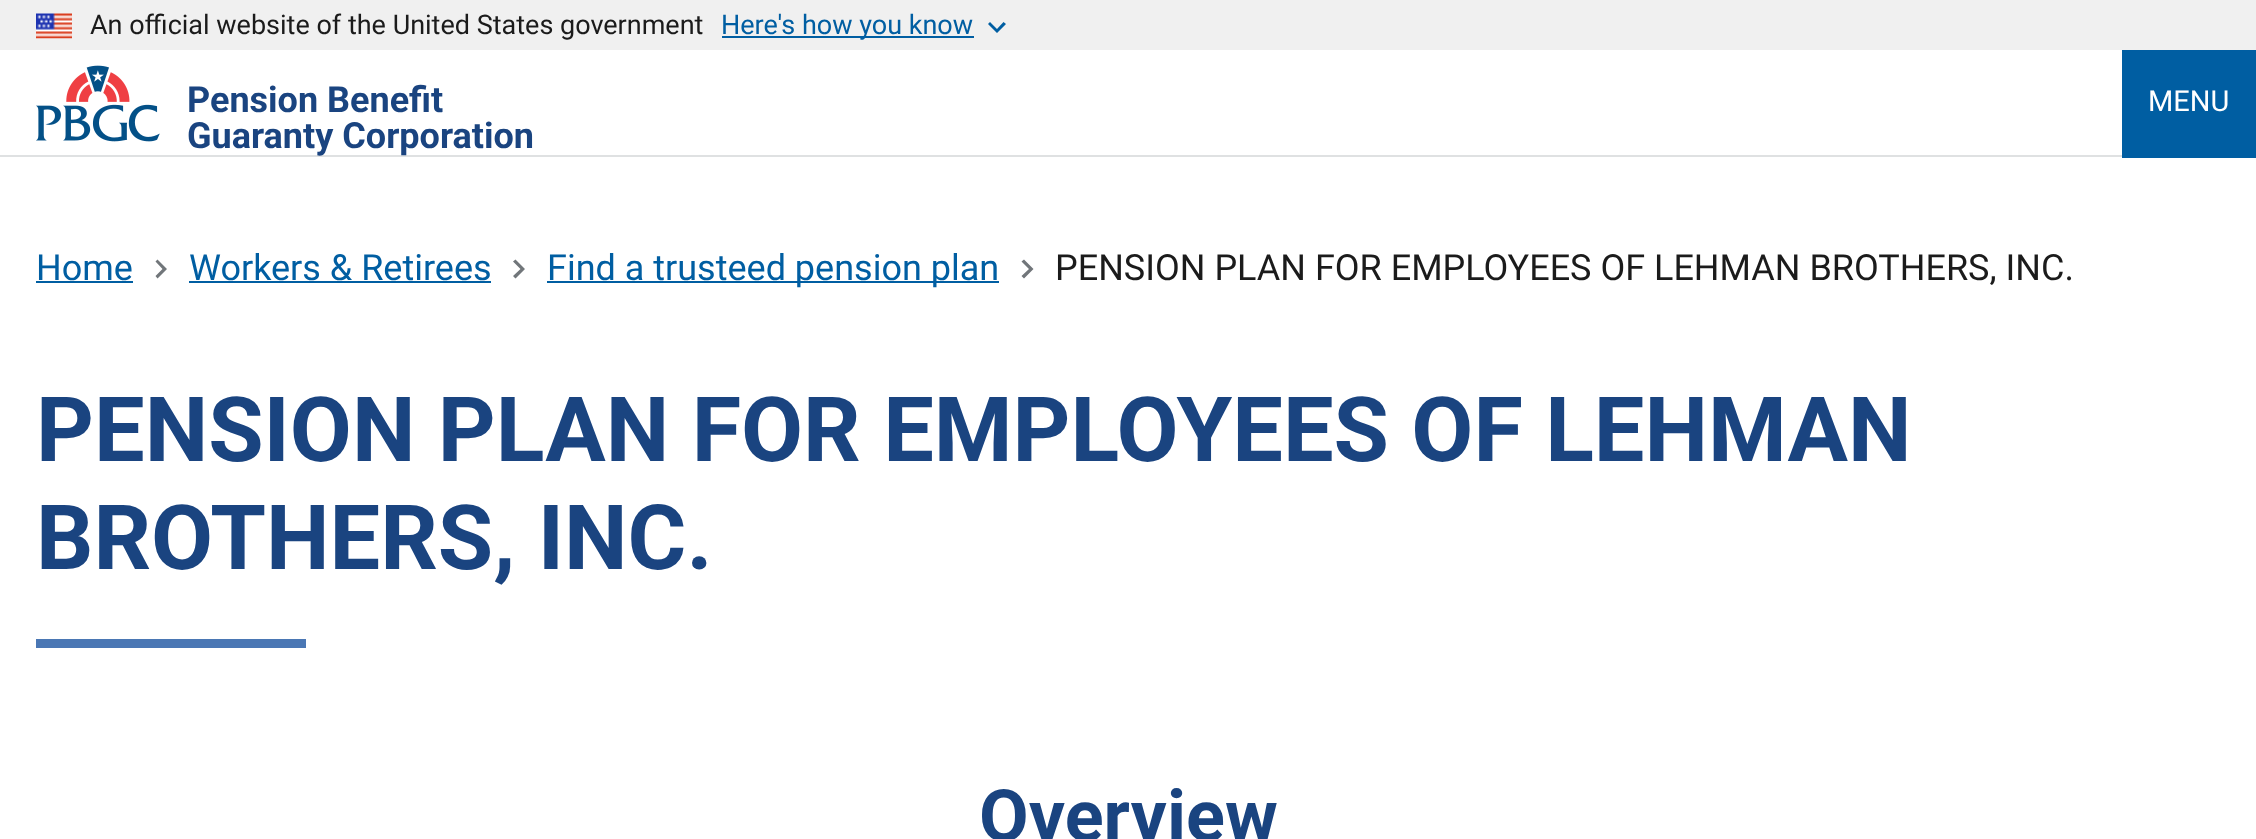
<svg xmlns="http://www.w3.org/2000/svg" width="2256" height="839">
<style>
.a{font:27px Roboto;fill:#1b1b1b}
.b{font:27px Roboto;fill:#005ea2}
.c{font:bold 36px Roboto;fill:#1a4480}
.d{font:29px Roboto;fill:#fff}
.e{font:36px Roboto;fill:#005ea2}
.f{font:36px Roboto;fill:#1b1b1b}
.g{font:bold 90px Roboto;fill:#1a4480}
.h{font:bold 72px Roboto;fill:#1a4480}
</style>
<rect width="100%" height="100%" fill="#fff"/>
<path fill="#f0f0f0" d="M0 0h2256v50H0z"/>
<image href="1.png" x="36" y="13" width="36" height="26"/>
<path fill="#005ea2" d="M722 36h252v2H722z"/>
<path fill="#005ea2" d="M1003.5 22l-6.5 7l-7-7l-2 2l9 9l9-9z"/>
<path fill="#dfe1e2" d="M0 155h2122v2H0z"/>
<image href="2.png" x="36" y="65" width="124" height="77"/>
<path fill="#005ea2" d="M2122 50h134v108H2122z"/>
<path fill="#005ea2" d="M36 281h97v2H36z"/>
<path fill="#71767a" d="M157.5 259.5l-2 2l7 7.5l-7 7l2 2.5l9.5-9.5z"/>
<path fill="#005ea2" d="M189 281h302v2H189z"/>
<path fill="#71767a" d="M515.5 259.5l-2.5 2l7.5 7.5l-7.5 7l2.5 2.5l9.5-9.5z"/>
<path fill="#005ea2" d="M547 281h452v2H547z"/>
<path fill="#71767a" d="M1024 259.5l-2.5 2l7.5 7.5l-7.5 7l2.5 2.5l9.5-9.5z"/>
<path fill="#4a77b4" d="M36 639h270v9H36z"/>
<text class="a" x="90" y="34">An official website of the United States government</text>
<text class="b" x="721" y="34">Here's how you know</text>
<text class="c" x="187" y="112">Pension Benefit</text>
<text class="c" x="187" y="148">Guaranty Corporation</text>
<text class="d" x="2148" y="111">MENU</text>
<text class="e" x="36" y="280">Home</text>
<text class="e" x="189" y="280">Workers &amp; Retirees</text>
<text class="e" x="547" y="280">Find a trusteed pension plan</text>
<text class="f" x="1055" y="280">PENSION PLAN FOR EMPLOYEES OF LEHMAN BROTHERS, INC.</text>
<text class="g" x="36" y="461">PENSION PLAN FOR EMPLOYEES OF LEHMAN</text>
<text class="g" x="36" y="569">BROTHERS, INC.</text>
<text class="h" x="979" y="841">Overview</text>
</svg>
